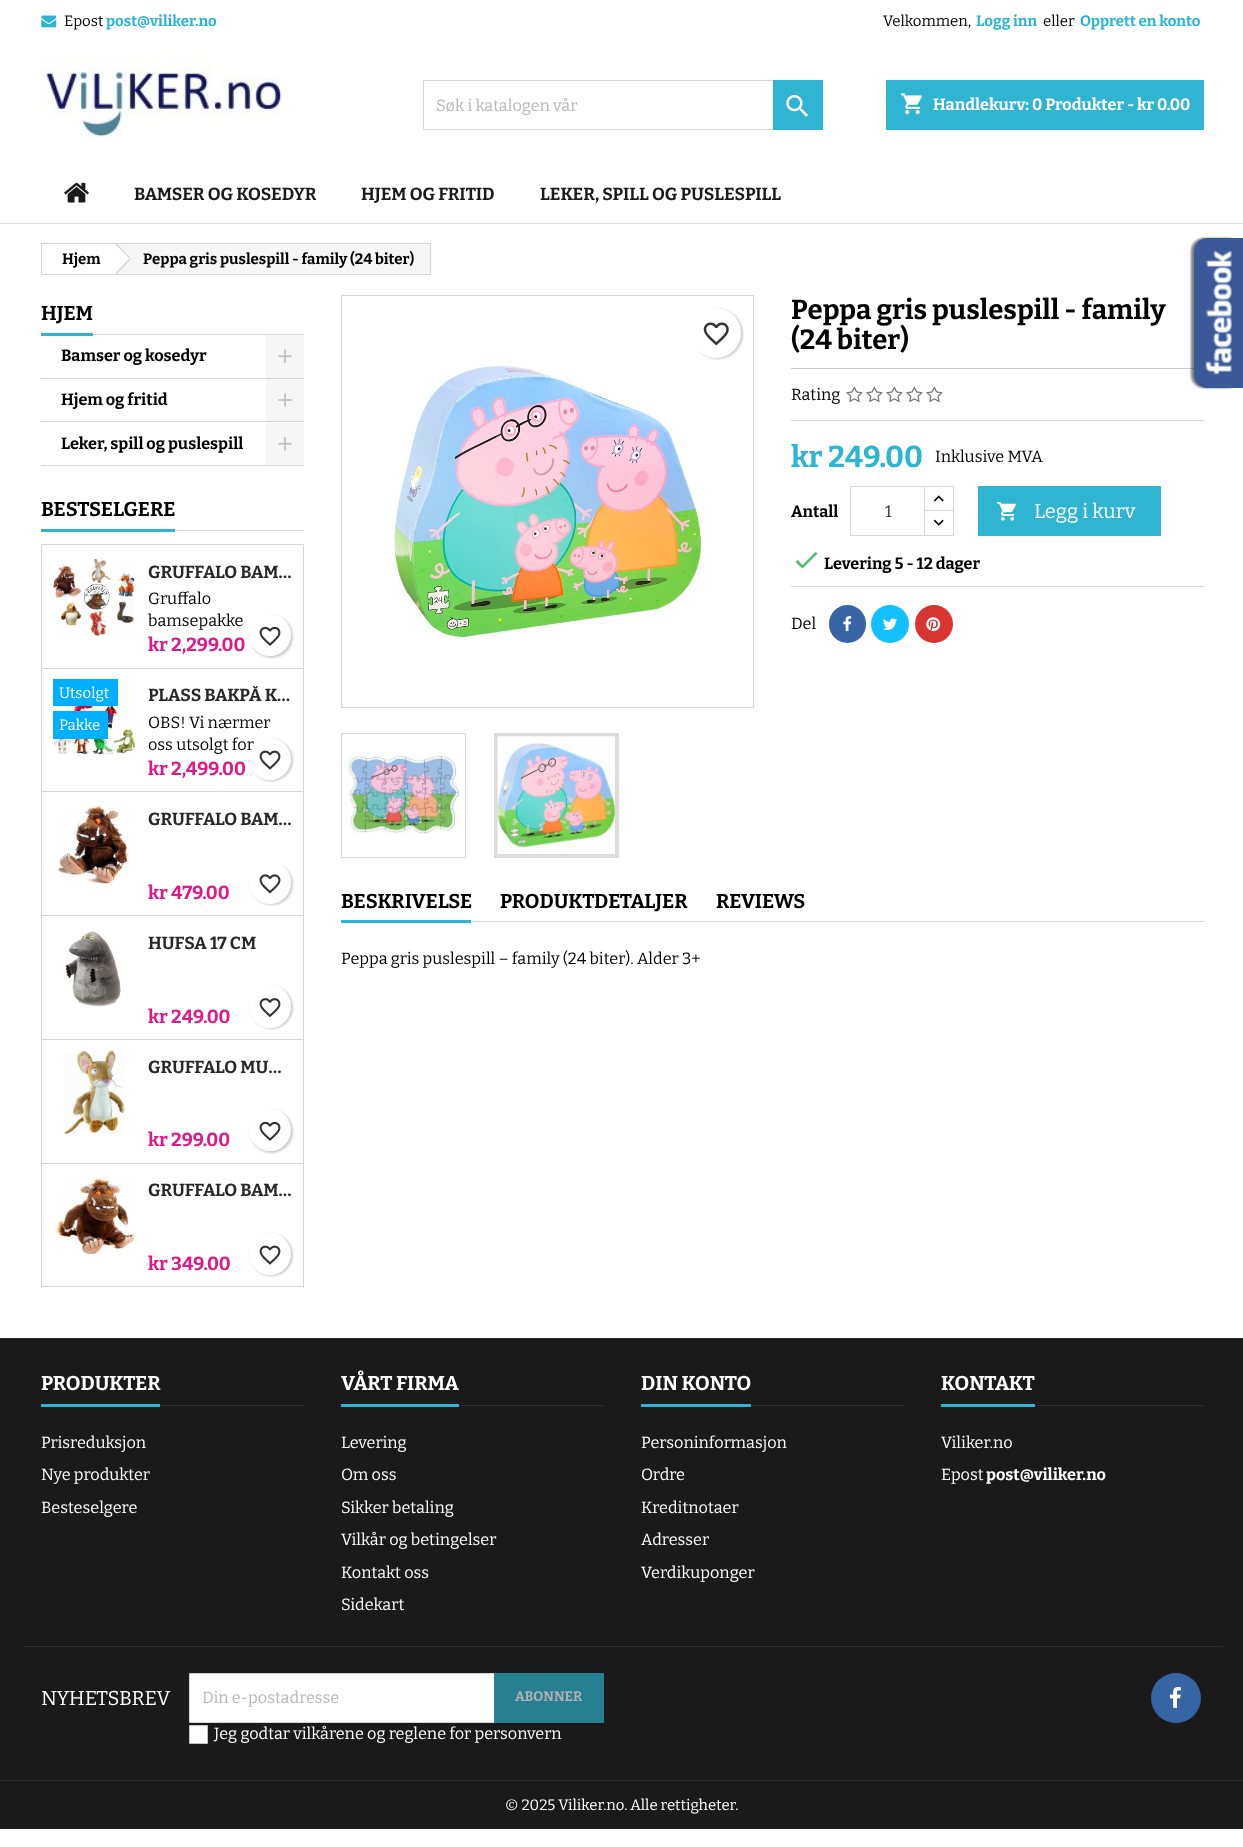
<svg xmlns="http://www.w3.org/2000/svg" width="1243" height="1847">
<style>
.a{font:15px Bitter;fill:#000}
.b{font:bold 15px Bitter;fill:#2fb5d2}
.c{font:16.25px Bitter;fill:#b7b7b7}
.d{font:bold 16.25px Bitter;fill:#fff}
.e{font:bold 17.5px Bitter;fill:#1b1a1b}
.f{font:bold 15px Bitter;fill:#000}
.g{font:bold 20px Bitter;fill:#000}
.h{font:bold 16.25px Bitter;fill:#000}
.i{font:bold 17.5px Bitter;fill:#282828}
.j{font:16.25px Bitter;fill:#000}
.k{font:bold 18.75px Bitter;fill:#e11887}
.l{font:15px Bitter;fill:#fff}
.m{font:bold 27.5px Bitter;fill:#000}
.n{font:bold 30px Bitter;fill:#2fb5d2}
.o{font:16.25px Bitter;fill:#282828}
.p{font:20px Bitter;fill:#fff}
.q{font:bold 20px Bitter;fill:#fff}
.r{font:16.25px Bitter;fill:#fff}
.s{font:bold 13.75px Bitter;fill:#afafaf}
</style>
<defs>
<clipPath id="clip1"><path d="M149 686h142v20H149z"/></clipPath>
</defs>
<rect width="100%" height="100%" fill="#fff"/>
<image href="1.png" x="41" y="15" width="16" height="13"/>
<image href="2.png" x="41" y="57" width="241" height="81"/>
<path fill="none" stroke="#d6d4d4" d="M423.5 80.5h399v49H423.5z"/>
<path fill="#2fb5d2" d="M773 80h50v50H773z"/>
<image href="3.png" x="786" y="95" width="22" height="22"/>
<path fill="#2fb5d2" d="M886 80h318v50H886z"/>
<image href="4.png" x="901" y="93" width="21" height="22"/>
<path fill="#e0e0e0" d="M0 223h1243v1H0z"/>
<image href="5.png" x="64" y="182" width="25" height="21"/>
<path fill="none" stroke="#d6d4d4" d="M41.5 243.5h389v31H41.5z"/>
<path fill="#f6f6f6" d="M116 244h314v30H116z"/>
<path fill="#d6d4d4" d="M93 334h211v1H93z"/>
<path fill="#2fb5d2" d="M41 333h52v3H41z"/>
<path fill="#d6d4d4" d="M41 378h263v1H41z"/>
<path fill="#f6f6f6" d="M266 335h38v43H266z"/>
<image href="6.png" x="278" y="349" width="14" height="14"/>
<path fill="#d6d4d4" d="M41 421h263v1H41z"/>
<path fill="#f6f6f6" d="M266 379h38v42H266z"/>
<image href="7.png" x="278" y="393" width="14" height="14"/>
<path fill="#d6d4d4" d="M41 465h263v1H41z"/>
<path fill="#f6f6f6" d="M266 423h38v42H266z"/>
<image href="8.png" x="278" y="437" width="14" height="14"/>
<path fill="#d6d4d4" d="M175 530h129v1H175z"/>
<path fill="#2fb5d2" d="M41 529h134v3H41z"/>
<path fill="none" stroke="#d6d4d4" d="M41.5 544.5h262v124H41.5z"/>
<image href="9.png" x="53" y="558" width="82" height="78"/>
<rect fill="#00000033" filter="blur(1px)" x="250" y="615" width="43" height="43" rx="21.5"/>
<circle fill="#fff" cx="270" cy="635" r="21"/>
<image href="10.png" x="259" y="626" width="22" height="20"/>
<path fill="#d6d4d4" d="M303 669h1v619H303z"/>
<path fill="#d6d4d4" d="M41 791h263v1H41z"/>
<path fill="#d6d4d4" d="M41 669h1v124H41z"/>
<image href="11.png" x="54" y="689" width="82" height="66"/>
<path fill="#00b0ff" d="M53 679h65v27H53z"/>
<path fill="#00b0ff" d="M53 711h55v28H53z"/>
<rect fill="#00000033" filter="blur(1px)" x="250" y="739" width="43" height="42" rx="21"/>
<path fill="#d6d4d4" d="M41 915h263v1H41z"/>
<path fill="#d6d4d4" d="M41 793h1v123H41z"/>
<image href="13.png" x="58" y="804" width="72" height="81"/>
<rect fill="#00000033" filter="blur(1px)" x="250" y="863" width="43" height="42" rx="21"/>
<rect fill="#fff" x="249" y="861" width="42" height="43" rx="21"/>
<image href="14.png" x="259" y="874" width="22" height="20"/>
<path fill="#d6d4d4" d="M41 1039h263v1H41z"/>
<path fill="#d6d4d4" d="M41 916h1v124H41z"/>
<image href="15.png" x="65" y="931" width="56" height="76"/>
<rect fill="#00000033" filter="blur(1px)" x="250" y="986" width="43" height="43" rx="21.5"/>
<rect fill="#fff" x="249" y="985" width="42" height="43" rx="21"/>
<image href="16.png" x="259" y="998" width="22" height="20"/>
<path fill="#d6d4d4" d="M41 1163h263v1H41z"/>
<path fill="#d6d4d4" d="M41 1040h1v124H41z"/>
<image href="17.png" x="64" y="1050" width="62" height="84"/>
<rect fill="#00000033" filter="blur(1px)" x="250" y="1110" width="43" height="43" rx="21.5"/>
<circle fill="#fff" cx="270" cy="1130" r="21"/>
<image href="10.png" x="259" y="1121" width="22" height="20"/>
<path fill="#d6d4d4" d="M41 1286h263v1H41z"/>
<path fill="#d6d4d4" d="M41 1164h1v124H41z"/>
<image href="18.png" x="54" y="1177" width="82" height="77"/>
<rect fill="#00000033" filter="blur(1px)" x="250" y="1234" width="43" height="42" rx="21"/>
<circle fill="#fff" cx="270" cy="1254" r="21"/>
<image href="12.png" x="259" y="1245" width="22" height="20"/>
<path fill="none" stroke="#d6d4d4" d="M341.5 295.5h412v412H341.5z"/>
<image href="19.png" x="393" y="366" width="309" height="275"/>
<path fill="none" stroke="#d6d4d4" d="M341.5 733.5h124v124H341.5z"/>
<path fill="none" stroke="#dbdbdb" stroke-width="4" d="M496 735h121v121H496z"/>
<image href="20.png" x="345" y="756" width="115" height="78"/>
<image href="21.png" x="497" y="736" width="118" height="118"/>
<rect fill="#00000033" filter="blur(1px)" x="693" y="309" width="50" height="50" rx="25"/>
<circle fill="#fff" cx="716" cy="333" r="25"/>
<image href="22.png" x="703" y="322" width="26" height="24"/>
<path fill="#ccc" d="M791 368h403v1H791z"/>
<image href="23.png" x="846" y="386" width="17" height="16"/>
<image href="23.png" x="866" y="386" width="17" height="16"/>
<image href="23.png" x="886" y="386" width="17" height="16"/>
<image href="23.png" x="906" y="386" width="17" height="16"/>
<image href="23.png" x="926" y="386" width="17" height="16"/>
<path fill="#d6d4d4" d="M791 420h413v1H791z"/>
<path fill="none" stroke="#d6d4d4" d="M924.5 486.5h29v26H924.5z"/>
<path fill="#fff" d="M925 512h28v1H925z"/>
<path fill="none" stroke="#d6d4d4" d="M924.5 510.5h29v25H924.5z"/>
<path fill="none" stroke="#d6d4d4" d="M850.5 486.5h74v49H850.5z"/>
<image href="24.png" x="933" y="495" width="11" height="7"/>
<image href="25.png" x="933" y="519" width="11" height="7"/>
<path fill="#2fb5d2" d="M978 486h183v50H978z"/>
<image href="26.png" x="997" y="501" width="19" height="20"/>
<path fill="#4cbb6c" d="M802.5 565l13-13l2 1.5l-15 15l-7-6.5l2-2z"/>
<path fill="#d6d4d4" d="M791 586h413v1H791z"/>
<rect fill="#3765a3" x="829" y="605" width="37" height="38" rx="18.5"/>
<image href="27.png" x="843" y="616" width="9" height="16"/>
<circle fill="#11c1ff" cx="890" cy="624" r="19"/>
<image href="28.png" x="883" y="618" width="14" height="12"/>
<circle fill="#d73532" cx="934" cy="624" r="19"/>
<image href="29.png" x="926" y="617" width="15" height="15"/>
<path fill="#d6d4d4" d="M471 921h733v1H471z"/>
<path fill="#2fb5d2" d="M341 920h130v3H341z"/>
<rect fill="#00000080" filter="blur(1px)" x="1191" y="238" width="50" height="150" rx="13"/>
<path fill="#3b5998" d="M1207 238h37v150h-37c-7 0-13-6-13-13v-124c0-7 6-13 13-13z"/>
<image href="30.png" x="1205" y="250" width="27" height="125"/>
<path fill="#1b1a1b" d="M0 1339h1243v490H0z"/>
<path fill="#2d2d2d" d="M0 1338h1243v1H0z"/>
<path fill="#2d2d2d" d="M160 1405h144v1H160z"/>
<path fill="#2fb5d2" d="M41 1404h119v3H41z"/>
<path fill="#2d2d2d" d="M459 1405h145v1H459z"/>
<path fill="#2fb5d2" d="M341 1404h118v3H341z"/>
<path fill="#2d2d2d" d="M751 1405h153v1H751z"/>
<path fill="#2fb5d2" d="M641 1404h110v3H641z"/>
<path fill="#2d2d2d" d="M1035 1405h169v1H1035z"/>
<path fill="#2fb5d2" d="M941 1404h94v3H941z"/>
<path fill="#2d2d2d" d="M23 1646h1200v1H23z"/>
<path fill="#fff" d="M190 1674h304v48H190z"/>
<path fill="none" stroke="#d6d4d4" d="M189.5 1673.5h318v49H189.5z"/>
<path fill="#287f92" d="M494 1673h110v50H494z"/>
<path fill="#fff" stroke="#c3c3c3" d="M189.5 1725.5h18v18H189.5z"/>
<circle fill="#3765a3" cx="1176" cy="1698" r="25"/>
<image href="31.png" x="1169" y="1687" width="12" height="21"/>
<path fill="#2d2d2d" d="M0 1780h1243v1H0z"/>
<text class="a" x="64" y="26">Epost</text>
<text class="b" x="106" y="26">post@viliker.no</text>
<text class="a" x="883" y="26">Velkommen,</text>
<text class="b" x="976" y="26">Logg inn</text>
<text class="a" x="1043" y="26">eller</text>
<text class="b" x="1080" y="26">Opprett en konto</text>
<text class="c" x="436" y="111">Søk i katalogen vår</text>
<text class="d" x="933" y="110">Handlekurv: 0 Produkter - kr 0.00</text>
<text class="e" x="134" y="200">BAMSER OG KOSEDYR</text>
<text class="e" x="361" y="200">HJEM OG FRITID</text>
<text class="e" x="540" y="200">LEKER, SPILL OG PUSLESPILL</text>
<text class="f" x="62" y="264">Hjem</text>
<path fill="#fff" d="M117 244.5l12.5 12.5c1 1 1 2.5 0 3.5l-12.5 12.5c-.5 1-2.5 1-3.5 0l-12-12.5c-1-1-1-2.5 0-3.5l12-12.5c1-1 3-1 3.5 0z"/>
<path fill="#d6d4d4" d="M116.5 243.5l14 14.5l-1 .5l-14-14z"/>
<path fill="#d6d4d4" d="M129.5 258.5l1 1l-14 14.5l-1-1z"/>
<text class="f" x="143" y="264">Peppa gris puslespill - family (24 biter)</text>
<text class="g" x="41" y="320">HJEM</text>
<text class="h" x="61" y="361">Bamser og kosedyr</text>
<text class="h" x="61" y="405">Hjem og fritid</text>
<text class="h" x="61" y="449">Leker, spill og puslespill</text>
<text class="g" x="41" y="516">BESTSELGERE</text>
<text class="i" x="148" y="578">GRUFFALO BAM…</text>
<text class="j" x="148" y="604">Gruffalo</text>
<text class="j" x="148" y="626">bamsepakke</text>
<text class="k" x="148" y="651">kr 2,299.00</text>
<text class="l" x="59" y="698">Utsolgt</text>
<text class="l" x="59" y="730">Pakke</text>
<g clip-path="url(#clip1)">
<text class="i" x="148" y="701">PLASS BAKPÅ K…</text>
</g>
<text class="j" x="148" y="728">OBS! Vi nærmer</text>
<text class="j" x="148" y="750">oss utsolgt for</text>
<text class="k" x="148" y="775">kr 2,499.00</text>
<circle fill="#fff" cx="270" cy="759" r="21"/>
<image href="12.png" x="259" y="750" width="22" height="20"/>
<text class="i" x="148" y="825">GRUFFALO BAM…</text>
<text class="k" x="148" y="899">kr 479.00</text>
<text class="i" x="148" y="949">HUFSA 17 CM</text>
<text class="k" x="148" y="1023">kr 249.00</text>
<text class="i" x="148" y="1073">GRUFFALO MU…</text>
<text class="k" x="148" y="1146">kr 299.00</text>
<text class="i" x="148" y="1196">GRUFFALO BAM…</text>
<text class="k" x="148" y="1270">kr 349.00</text>
<text class="m" x="791" y="319">Peppa gris puslespill - family</text>
<text class="m" x="791" y="349">(24 biter)</text>
<text class="j" x="791" y="400">Rating</text>
<text class="n" x="791" y="467">kr 249.00</text>
<text class="j" x="935" y="462">Inklusive MVA</text>
<text class="h" x="791" y="517">Antall</text>
<text class="o" x="885" y="517">1</text>
<text class="p" x="1034" y="518">Legg i kurv</text>
<text class="h" x="824" y="569">Levering 5 - 12 dager</text>
<text class="j" x="791" y="629">Del</text>
<text class="g" x="341" y="908">BESKRIVELSE</text>
<text class="g" x="500" y="908">PRODUKTDETALJER</text>
<text class="g" x="716" y="908">REVIEWS</text>
<text class="j" x="341" y="964">Peppa gris puslespill – family (24 biter). Alder 3+</text>
<text class="q" x="41" y="1390">PRODUKTER</text>
<text class="r" x="41" y="1448">Prisreduksjon</text>
<text class="r" x="41" y="1480">Nye produkter</text>
<text class="r" x="41" y="1513">Besteselgere</text>
<text class="q" x="341" y="1390">VÅRT FIRMA</text>
<text class="r" x="341" y="1448">Levering</text>
<text class="r" x="341" y="1480">Om oss</text>
<text class="r" x="341" y="1513">Sikker betaling</text>
<text class="r" x="341" y="1545">Vilkår og betingelser</text>
<text class="r" x="341" y="1578">Kontakt oss</text>
<text class="r" x="341" y="1610">Sidekart</text>
<text class="q" x="641" y="1390">DIN KONTO</text>
<text class="r" x="641" y="1448">Personinformasjon</text>
<text class="r" x="641" y="1480">Ordre</text>
<text class="r" x="641" y="1513">Kreditnotaer</text>
<text class="r" x="641" y="1545">Adresser</text>
<text class="r" x="641" y="1578">Verdikuponger</text>
<text class="q" x="941" y="1390">KONTAKT</text>
<text class="r" x="941" y="1448">Viliker.no</text>
<text class="r" x="941" y="1480">Epost</text>
<text class="d" x="986" y="1480">post@viliker.no</text>
<text class="p" x="41" y="1705">NYHETSBREV</text>
<text class="c" x="202" y="1703">Din e-postadresse</text>
<text class="s" x="515" y="1701">ABONNER</text>
<text class="r" x="214" y="1739">Jeg godtar vilkårene og reglene for personvern</text>
<text class="l" x="505" y="1810">© 2025 Viliker.no. Alle rettigheter.</text>
</svg>
